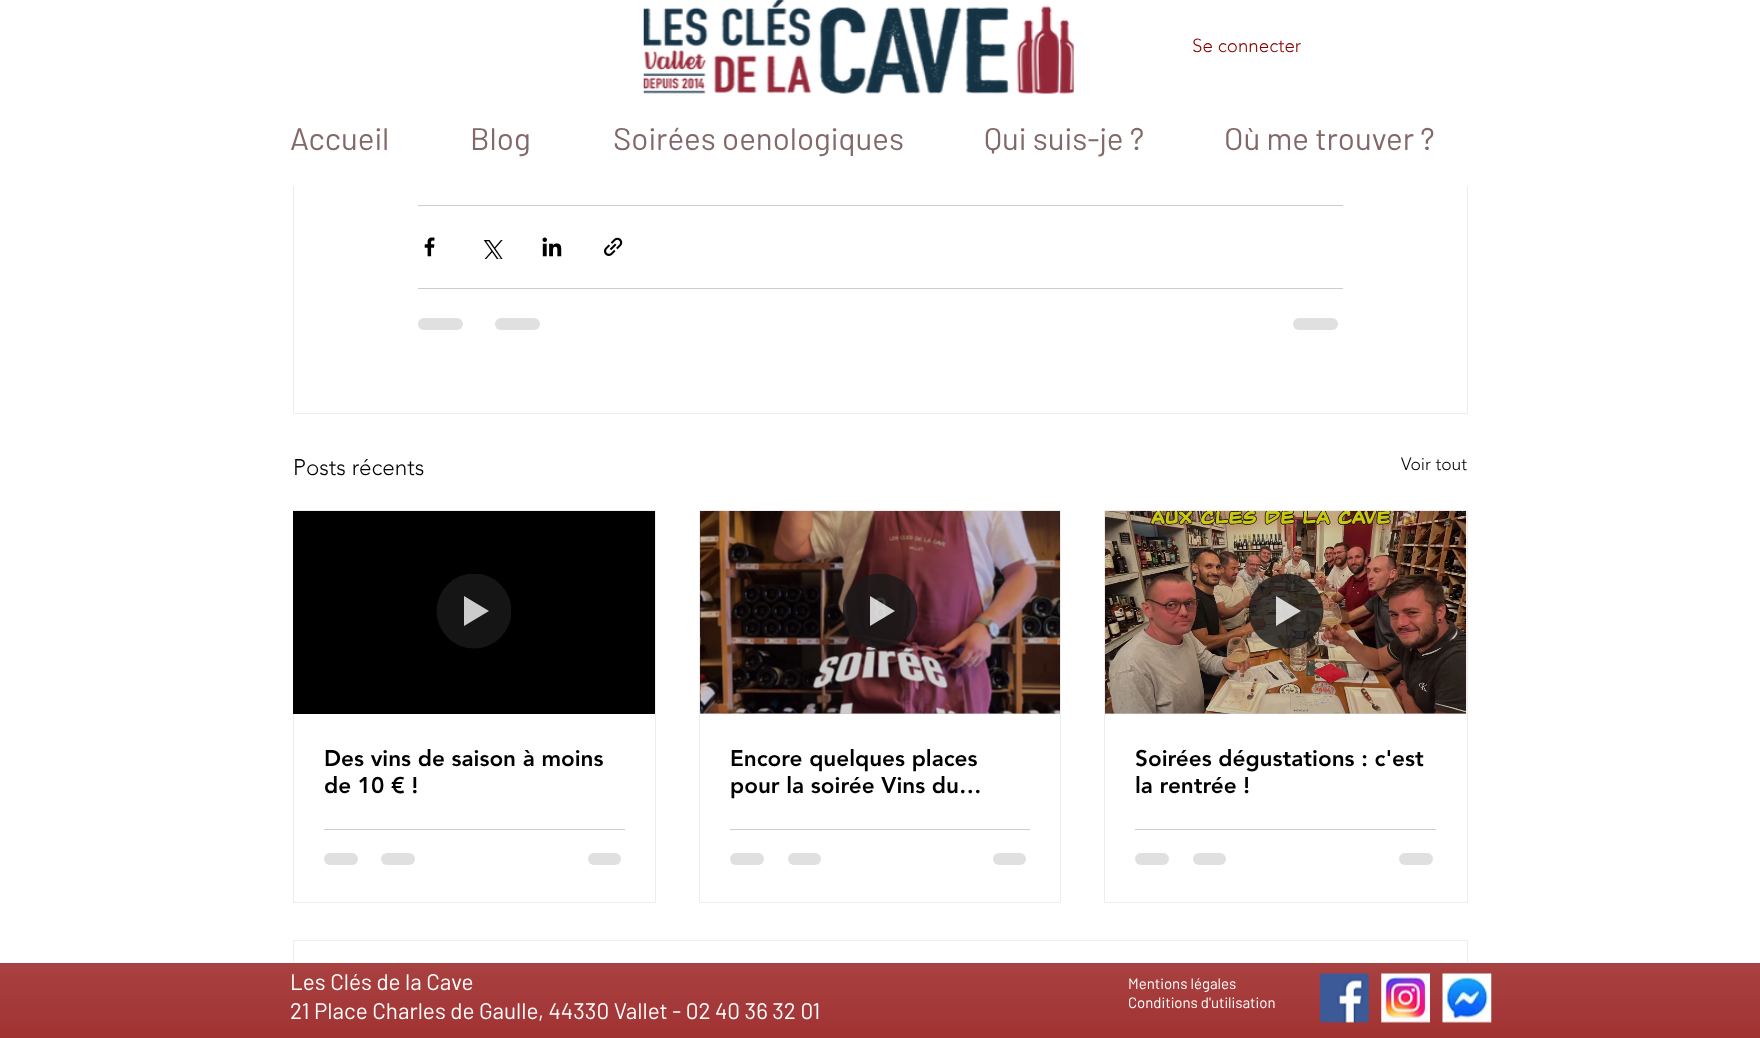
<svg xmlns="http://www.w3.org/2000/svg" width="1760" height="1038">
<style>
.a{font:300 18.75px 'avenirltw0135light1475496';fill:#8b0000}
.b{font:31.25px Barlow;fill:#826868}
.c{font:300 22.5px 'avenirltw0135light1475496';fill:#000}
.d{font:300 17.5px 'avenirltw0135light1475496';fill:#000}
.e{font:900 22.5px 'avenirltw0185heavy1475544';fill:#000}
.f{font:22.5px Barlow;fill:#fff}
.g{font:15px Barlow;fill:#fff}
</style>
<defs>
<clipPath id="clip1"><path d="M436 574h75v75H436z"/></clipPath>
<clipPath id="clip2"><path d="M843 574h75v75H843z"/></clipPath>
<clipPath id="clip3"><path d="M1249 574h75v75H1249z"/></clipPath>
</defs>
<rect width="100%" height="100%" fill="#fff"/>
<path fill="#ccc" d="M1105 713h361v1H1105z"/>
<path fill="#ccc" d="M700 713h360v1H700z"/>
<path fill="none" stroke="#eeecec" d="M293.5 -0.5h1174v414H293.5z"/>
<path fill="#fff" d="M293 0h1175v186H293z"/>
<image href="1.png" x="643" y="0" width="431" height="94"/>
<path fill="#ccc" d="M418 205h925v1H418z"/>
<image href="2.png" x="424" y="237" width="11" height="20"/>
<image href="3.png" x="483" y="240" width="20" height="19"/>
<image href="4.png" x="542" y="237" width="20" height="20"/>
<image href="5.png" x="604" y="237" width="19" height="19"/>
<path fill="#ccc" d="M418 288h925v1H418z"/>
<rect fill="#e0e0e0" x="418" y="318" width="45" height="12" rx="6"/>
<rect fill="#e0e0e0" x="495" y="318" width="45" height="12" rx="6"/>
<rect fill="#e0e0e0" x="1293" y="318" width="45" height="12" rx="6"/>
<path fill="none" stroke="#eeecec" d="M293.5 510.5h362v392H293.5z"/>
<path fill="#000" d="M293 511h362v203H293z"/>
<g clip-path="url(#clip1)">
<circle fill="#151515" cx="474" cy="611" r="37.5"/>
</g>
<path fill="#ccc" d="M464 596v30l25-15z"/>
<path fill="#ccc" d="M324 829h301v1H324z"/>
<rect fill="#e0e0e0" x="324" y="853" width="34" height="12" rx="6"/>
<rect fill="#e0e0e0" x="381" y="853" width="34" height="12" rx="6"/>
<rect fill="#e0e0e0" x="588" y="853" width="33" height="12" rx="6"/>
<path fill="none" stroke="#eeecec" d="M699.5 510.5h361v392H699.5z"/>
<image href="6.png" x="700" y="511" width="360" height="203"/>
<g clip-path="url(#clip2)">
<circle fill="#1a1a1acc" cx="880" cy="611" r="37.5"/>
</g>
<path fill="#ffffffcc" d="M870 596v30l25-15z"/>
<path fill="#ccc" d="M730 829h300v1H730z"/>
<rect fill="#e0e0e0" x="730" y="853" width="34" height="12" rx="6"/>
<rect fill="#e0e0e0" x="788" y="853" width="33" height="12" rx="6"/>
<rect fill="#e0e0e0" x="993" y="853" width="33" height="12" rx="6"/>
<path fill="none" stroke="#eeecec" d="M1104.5 510.5h363v392H1104.5z"/>
<image href="7.png" x="1105" y="511" width="362" height="203"/>
<g clip-path="url(#clip3)">
<circle fill="#1a1a1acc" cx="1286" cy="611" r="37.5"/>
</g>
<path fill="#ffffffcc" d="M1276 596v30l25-15z"/>
<path fill="#ccc" d="M1135 829h301v1H1135z"/>
<rect fill="#e0e0e0" x="1135" y="853" width="34" height="12" rx="6"/>
<rect fill="#e0e0e0" x="1193" y="853" width="33" height="12" rx="6"/>
<rect fill="#e0e0e0" x="1399" y="853" width="34" height="12" rx="6"/>
<path fill="none" stroke="#eeecec" d="M293.5 940.5h1174v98H293.5z"/>
<path fill="#8b0000" d="M0 963h1760v75H0z"/>
<image href="8.png" x="0" y="962" width="1760" height="76"/>
<image href="9.png" x="1320" y="973" width="49" height="50"/>
<image href="10.png" x="1381" y="973" width="49" height="50"/>
<image href="11.png" x="1442" y="973" width="50" height="50"/>
<text class="a" x="1192" y="52">Se connecter</text>
<text class="b" x="290" y="150">Accueil</text>
<text class="b" x="470" y="150">Blog</text>
<text class="b" x="613" y="150">Soirées oenologiques</text>
<text class="b" x="984" y="150">Qui suis-je ?</text>
<text class="b" x="1224" y="150">Où me trouver ?</text>
<text class="c" x="293" y="475">Posts récents</text>
<text class="d" x="1401" y="470">Voir tout</text>
<text class="e" x="324" y="766">Des vins de saison à moins</text>
<text class="e" x="324" y="793">de 10 € !</text>
<text class="e" x="730" y="766">Encore quelques places</text>
<text class="e" x="730" y="793">pour la soirée Vins du…</text>
<text class="e" x="1135" y="766">Soirées dégustations : c'est</text>
<text class="e" x="1135" y="793">la rentrée !</text>
<text class="f" x="290" y="990">Les Clés de la Cave</text>
<text class="f" x="290" y="1019">21 Place Charles de Gaulle, 44330 Vallet - 02 40 36 32 01</text>
<text class="g" x="1128" y="989">Mentions légales</text>
<text class="g" x="1128" y="1008">Conditions d'utilisation</text>
</svg>
